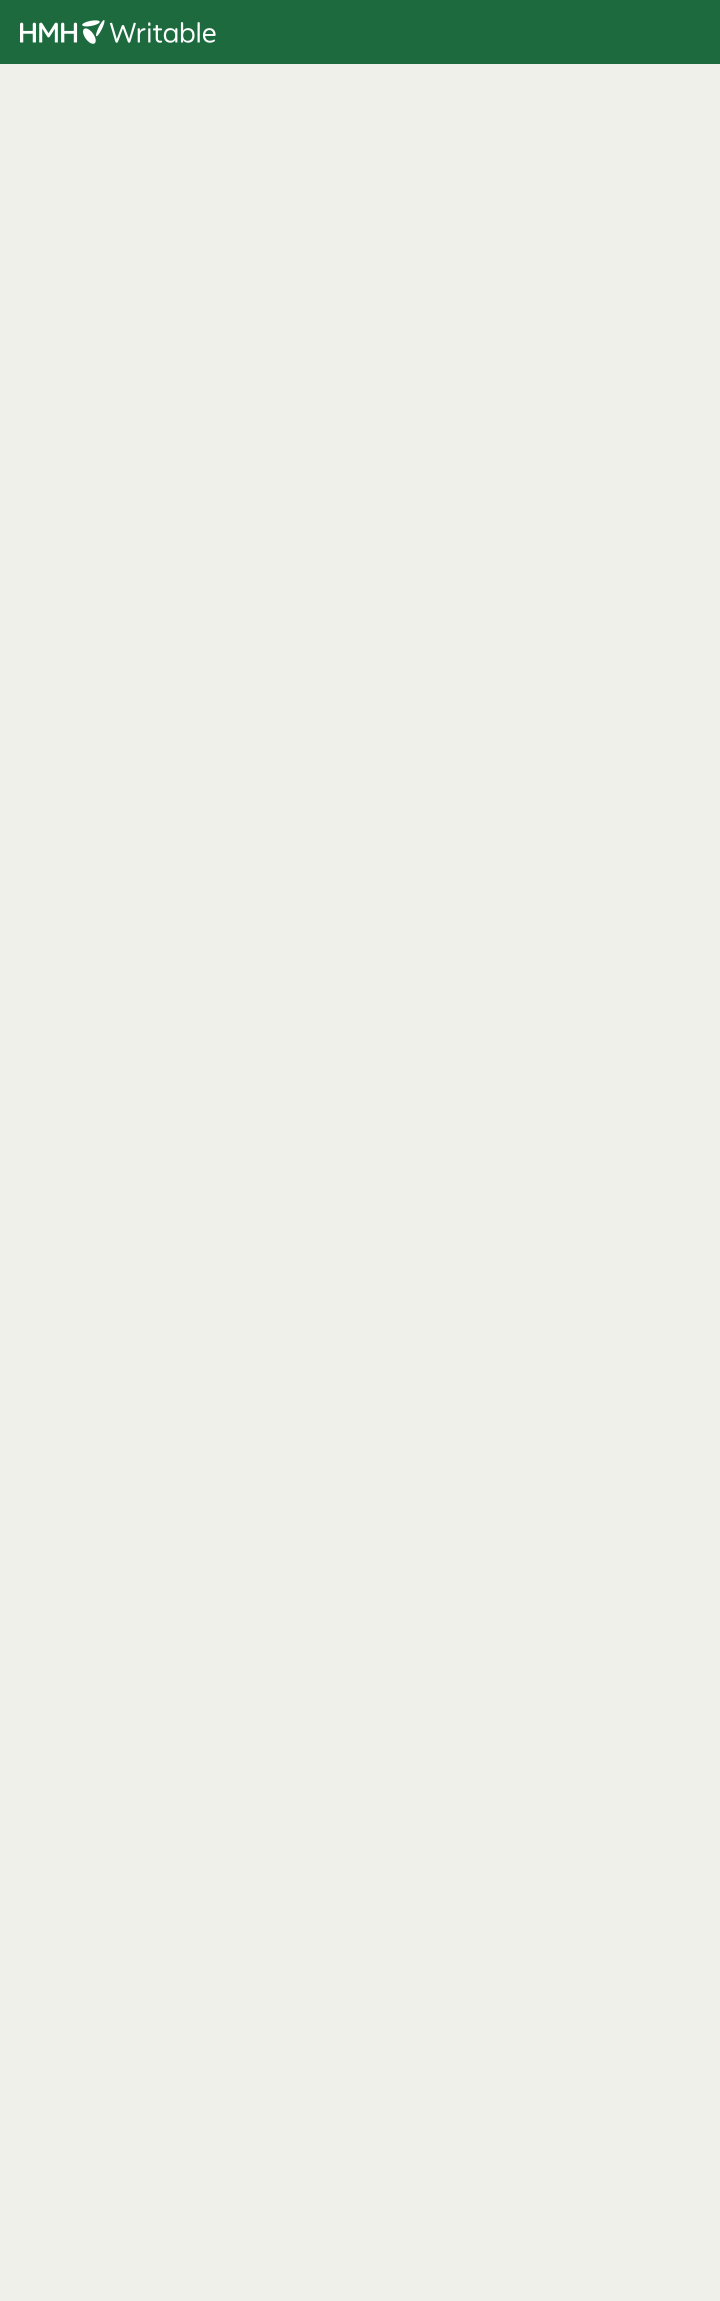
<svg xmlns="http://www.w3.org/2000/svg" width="720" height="2301">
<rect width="100%" height="100%" fill="#f0f0ea"/>
<path fill="#1c6a3e" d="M0 0h720v64H0z"/>
<image href="1.png" x="20" y="20" width="196" height="24"/>
</svg>
